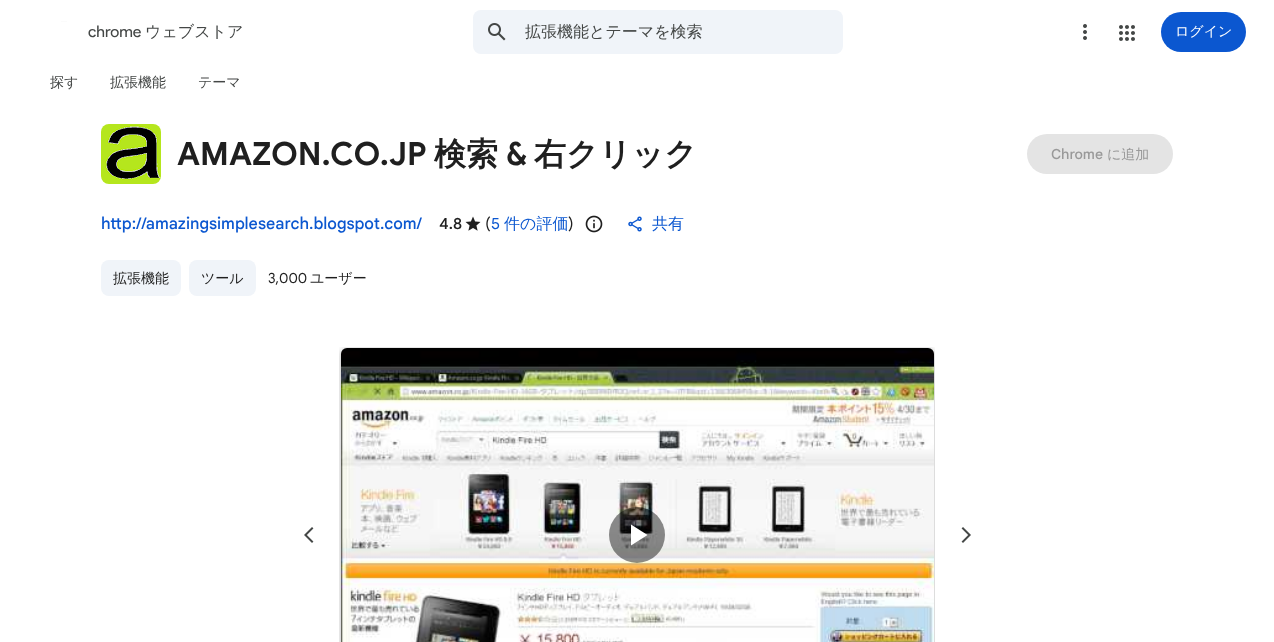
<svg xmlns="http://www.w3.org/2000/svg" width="1274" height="642">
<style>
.a{font:16px Product Sans;fill:#444746}
.b{font:500 16px WenQuanYi Zen Hei;fill:#444746}
.c{font:500 14px WenQuanYi Zen Hei;fill:#fff}
.d{font:500 14px WenQuanYi Zen Hei;fill:#444746}
.e{font:bold 32px Google Sans;fill:#1f1f1f}
.f{font:bold 32px WenQuanYi Zen Hei;fill:#1f1f1f}
.g{font:500 14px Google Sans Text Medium;fill:#999}
.h{font:500 14px WenQuanYi Zen Hei;fill:#999}
.i{font:500 16px 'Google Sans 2';fill:#0b57d0}
.j{font:500 16px Google Sans;fill:#1f1f1f}
.k{font:16px Google Sans;fill:#1f1f1f}
.l{font:16px 'Google Sans 2';fill:#0b57d0}
.m{font:500 16px WenQuanYi Zen Hei;fill:#0b57d0}
.n{font:500 14px WenQuanYi Zen Hei;fill:#1f1f1f}
.o{font:14px Google Sans;fill:#1f1f1f}
</style>
<rect width="100%" height="100%" fill="#fff"/>
<image href="1.png" x="61" y="21" width="6" height="1"/>
<rect fill="#f0f4f9" x="473" y="10" width="370" height="44" rx="8"/>
<image href="2.png" x="488" y="23" width="18" height="18"/>
<image href="3.png" x="1083" y="24" width="4" height="16"/>
<image href="4.png" x="1119" y="25" width="16" height="16"/>
<rect fill="#0b57d0" x="1161" y="12" width="85" height="40" rx="20"/>
<image href="5.png" x="101" y="124" width="60" height="60"/>
<rect fill="#e4e4e4" x="1027" y="134" width="146" height="40" rx="20"/>
<image href="6.png" x="465" y="216" width="16" height="15"/>
<image href="7.png" x="585" y="215" width="18" height="18"/>
<image href="8.png" x="628" y="216" width="14" height="16"/>
<rect fill="#f0f4f9" x="101" y="260" width="80" height="36" rx="8"/>
<rect fill="#f0f4f9" x="189" y="260" width="67" height="36" rx="8"/>
<image href="9.png" x="304" y="527" width="10" height="16"/>
<image href="10.png" x="339" y="347" width="596" height="295"/>
<circle fill="#00000073" cx="637" cy="535" r="28"/>
<path fill="#fff" d="M631 524.5v21l16.5-10.5z"/>
<image href="11.png" x="961" y="527" width="10" height="16"/>
<text class="a" x="88" y="37">chrome</text>
<text class="b" x="145" y="37">ウェブストア</text>
<text class="b" x="525" y="37">拡張機能とテーマを検索</text>
<text class="c" x="1175" y="36">ログイン</text>
<text class="d" x="50" y="87">探す</text>
<text class="d" x="110" y="87">拡張機能</text>
<text class="d" x="198" y="87">テーマ</text>
<text class="e" x="177" y="165">AMAZON.CO.JP</text>
<text class="f" x="434" y="165">検索</text>
<text class="e" x="506" y="165">&amp;</text>
<text class="f" x="534" y="165">右クリック</text>
<text class="g" x="1051" y="159">Chrome</text>
<text class="h" x="1107" y="159">に追加</text>
<text class="i" x="101" y="229">http://amazingsimplesearch.blogspot.com/</text>
<text class="j" x="439" y="229">4.8</text>
<text class="k" x="485" y="229">(</text>
<text class="l" x="491" y="229">5</text>
<text class="m" x="504" y="229">件の評価</text>
<text class="k" x="568" y="229">)</text>
<text class="m" x="652" y="229">共有</text>
<text class="n" x="113" y="283">拡張機能</text>
<text class="n" x="201" y="283">ツール</text>
<text class="o" x="268" y="283">3,000</text>
<text class="n" x="310" y="283">ユーザー</text>
</svg>
